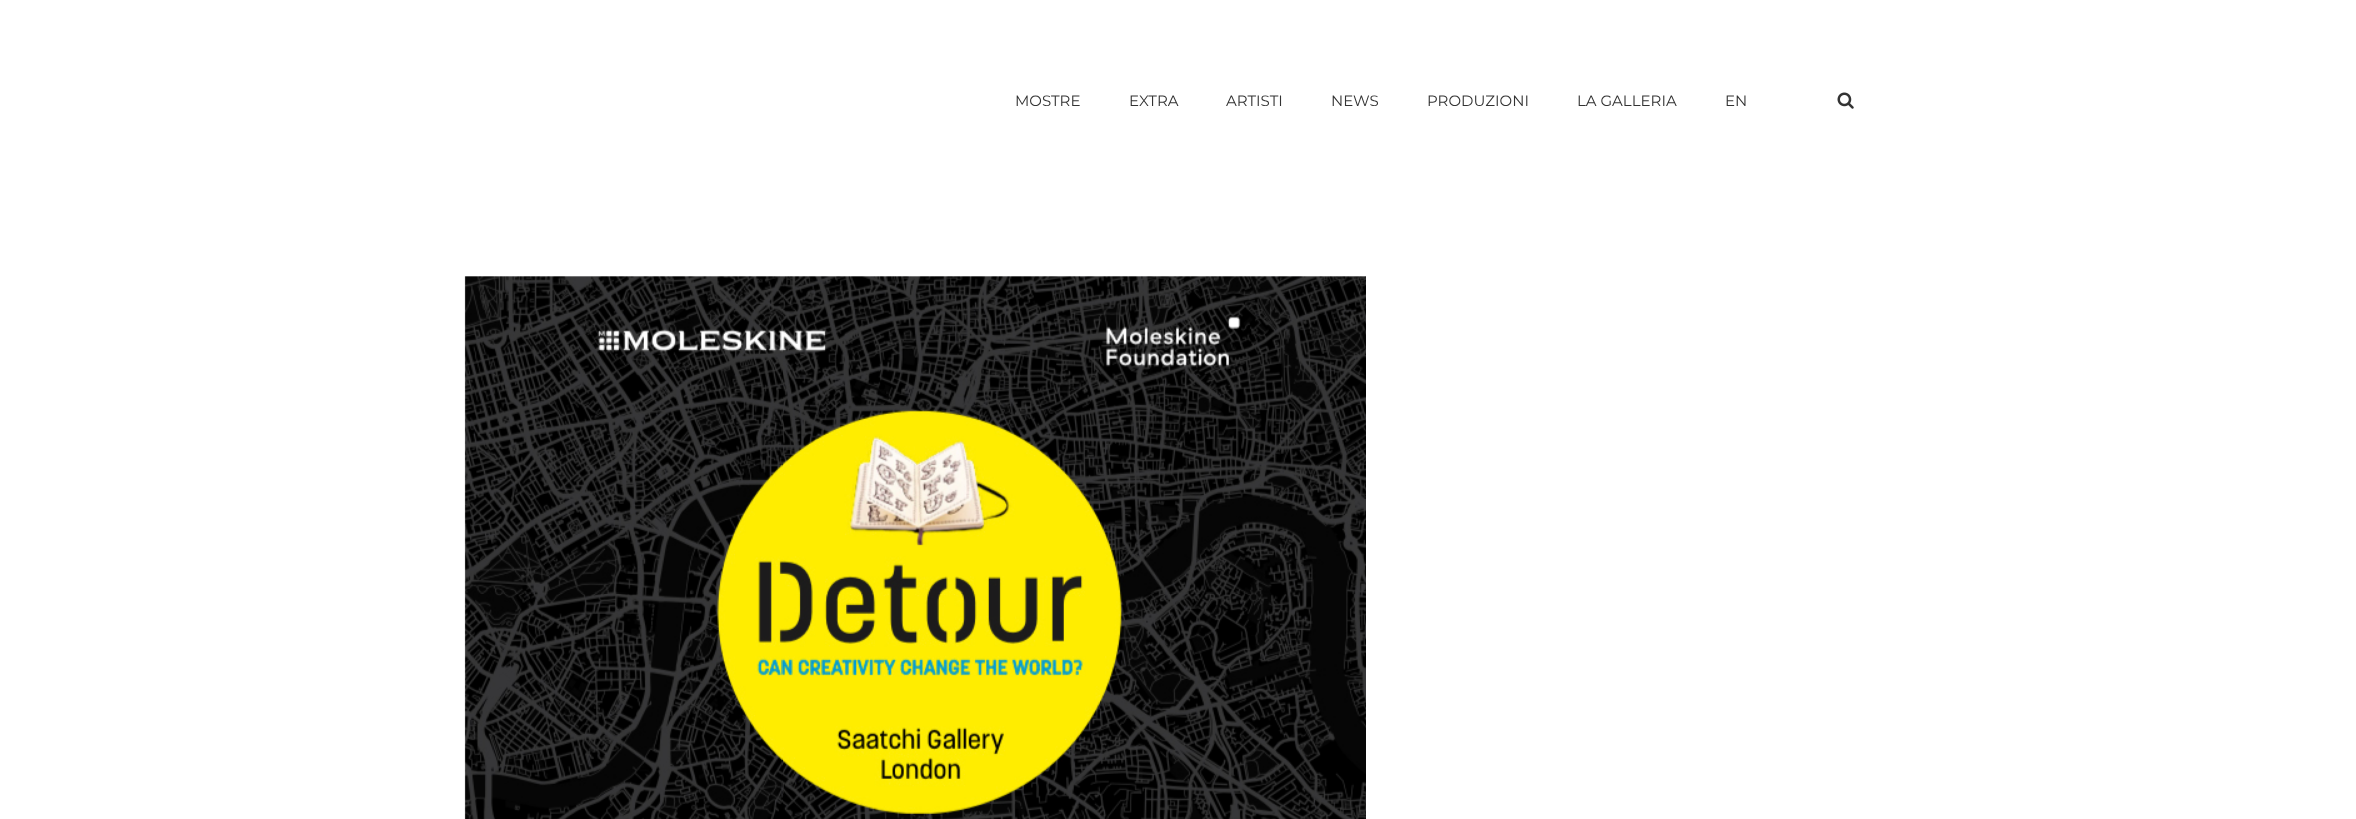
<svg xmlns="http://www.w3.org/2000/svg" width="2356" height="819">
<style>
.a{font:15px Montserrat;fill:#333}
</style>
<rect width="100%" height="100%" fill="#fff"/>
<image href="1.png" x="1837" y="92" width="17" height="17"/>
<image href="2.png" x="464" y="276" width="902" height="543"/>
<text class="a" x="1015" y="106">MOSTRE</text>
<text class="a" x="1129" y="106">EXTRA</text>
<text class="a" x="1226" y="106">ARTISTI</text>
<text class="a" x="1331" y="106">NEWS</text>
<text class="a" x="1427" y="106">PRODUZIONI</text>
<text class="a" x="1577" y="106">LA GALLERIA</text>
<text class="a" x="1725" y="106">EN</text>
</svg>
